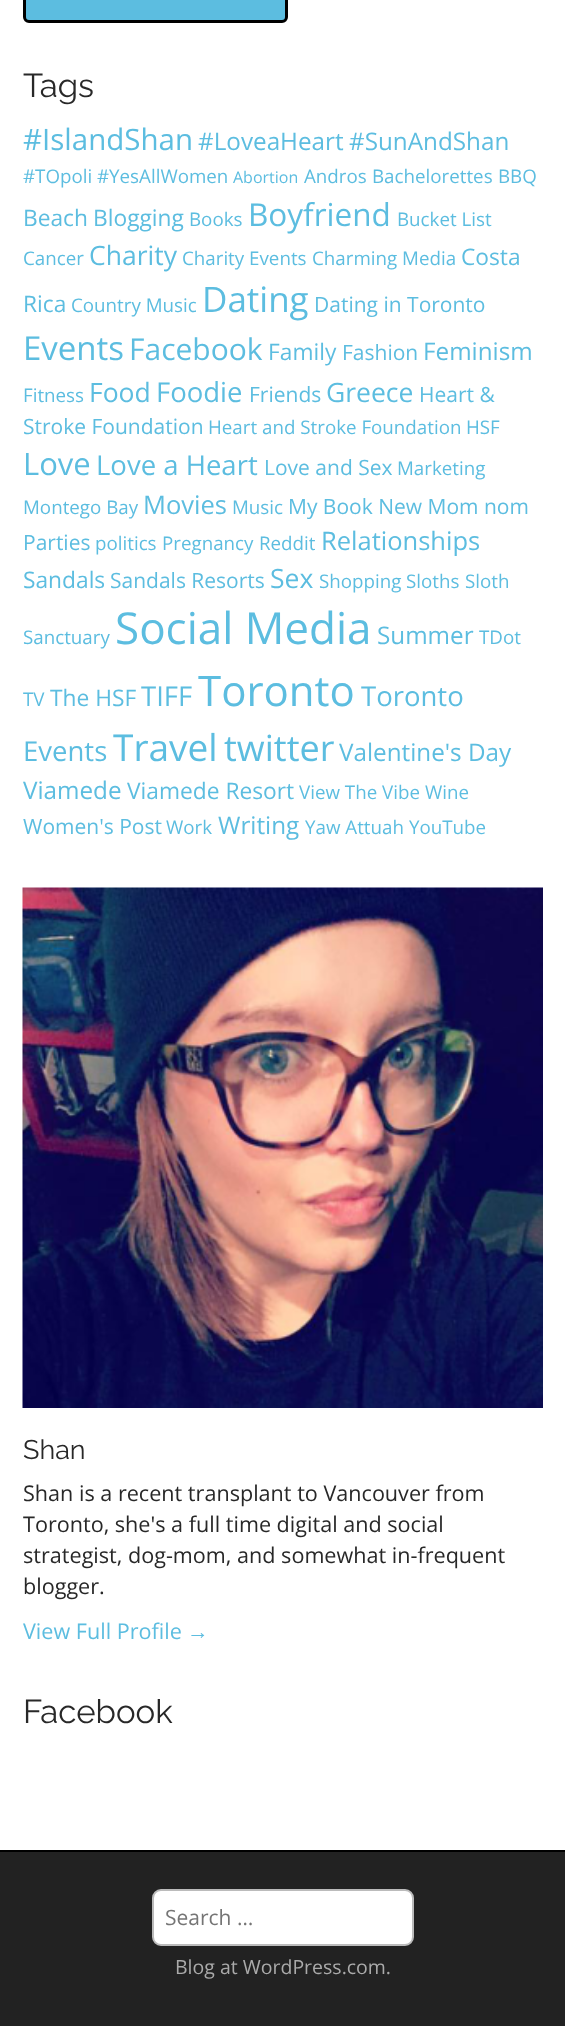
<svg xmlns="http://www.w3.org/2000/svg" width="565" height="2026">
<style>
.a{font:100 33px Raleway;fill:#282828}
.b{font:29.5px Open Sans;fill:#5cbde0}
.c{font:24.25px Open Sans;fill:#5cbde0}
.d{font:18.75px Open Sans;fill:#5cbde0}
.e{font:16px Open Sans;fill:#5cbde0}
.f{font:22.75px Open Sans;fill:#5cbde0}
.g{font:31.5px Open Sans;fill:#5cbde0}
.h{font:26.5px Open Sans;fill:#5cbde0}
.i{font:35px Open Sans;fill:#5cbde0}
.j{font:21px Open Sans;fill:#5cbde0}
.k{font:33px Open Sans;fill:#5cbde0}
.l{font:30px Open Sans;fill:#5cbde0}
.m{font:27.5px Open Sans;fill:#5cbde0}
.n{font:31px Open Sans;fill:#5cbde0}
.o{font:25.5px Open Sans;fill:#5cbde0}
.p{font:44px Open Sans;fill:#5cbde0}
.q{font:42px Open Sans;fill:#5cbde0}
.r{font:37px Open Sans;fill:#5cbde0}
.s{font:36px Open Sans;fill:#5cbde0}
.t{font:100 27px Raleway;fill:#282828}
.u{font:21.6px Open Sans;fill:#282828}
.v{font:21.6px Open Sans;fill:#5cbde0}
.w{font:21.6px Liberation Sans;fill:#5cbde0}
.x{font:21px Open Sans;fill:#757575}
.y{font:19.5px Open Sans;fill:#aaa}
</style>
<rect width="100%" height="100%" fill="#fff"/>
<rect fill="#5cbde0" stroke="#000" stroke-width="3" x="24.5" y="-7.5" width="262" height="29" rx="4.5"/>
<image href="1.png" x="22" y="887" width="521" height="521"/>
<path fill="#222" d="M0 1852h565v174H0z"/>
<path fill="#000" d="M0 1850h565v2H0z"/>
<rect fill="#fff" stroke="#bbb" stroke-width="2" x="153" y="1890" width="260" height="55" rx="8"/>
<text class="a" x="23" y="97">Tags</text>
<text class="b" x="23" y="150">#IslandShan</text>
<text class="c" x="198" y="150">#LoveaHeart</text>
<text class="c" x="349" y="150">#SunAndShan</text>
<text class="d" x="23" y="183">#TOpoli</text>
<text class="d" x="97" y="183">#YesAllWomen</text>
<text class="e" x="233" y="183">Abortion</text>
<text class="d" x="304" y="183">Andros</text>
<text class="d" x="372" y="183">Bachelorettes</text>
<text class="d" x="498" y="183">BBQ</text>
<text class="f" x="23" y="226">Beach</text>
<text class="f" x="93" y="226">Blogging</text>
<text class="d" x="189" y="226">Books</text>
<text class="g" x="248" y="226">Boyfriend</text>
<text class="d" x="397" y="226">Bucket List</text>
<text class="d" x="23" y="265">Cancer</text>
<text class="h" x="89" y="265">Charity</text>
<text class="d" x="182" y="265">Charity Events</text>
<text class="d" x="312" y="265">Charming Media</text>
<text class="f" x="461" y="265">Costa</text>
<text class="f" x="23" y="312">Rica</text>
<text class="d" x="71" y="312">Country Music</text>
<text class="i" x="202" y="312">Dating</text>
<text class="j" x="314" y="312">Dating in Toronto</text>
<text class="k" x="23" y="360">Events</text>
<text class="l" x="129" y="360">Facebook</text>
<text class="f" x="268" y="360">Family</text>
<text class="j" x="342" y="360">Fashion</text>
<text class="c" x="423" y="360">Feminism</text>
<text class="d" x="23" y="402">Fitness</text>
<text class="h" x="89" y="402">Food</text>
<text class="m" x="156" y="402">Foodie</text>
<text class="j" x="249" y="402">Friends</text>
<text class="h" x="326" y="402">Greece</text>
<text class="j" x="419" y="402">Heart &amp;</text>
<text class="j" x="23" y="434">Stroke Foundation</text>
<text class="d" x="208" y="434">Heart and Stroke Foundation</text>
<text class="d" x="466" y="434">HSF</text>
<text class="n" x="23" y="475">Love</text>
<text class="m" x="96" y="475">Love a Heart</text>
<text class="j" x="264" y="475">Love and Sex</text>
<text class="d" x="397" y="475">Marketing</text>
<text class="d" x="23" y="514">Montego Bay</text>
<text class="o" x="143" y="514">Movies</text>
<text class="d" x="232" y="514">Music</text>
<text class="j" x="288" y="514">My Book New Mom nom</text>
<text class="j" x="23" y="550">Parties</text>
<text class="d" x="95" y="550">politics</text>
<text class="d" x="162" y="550">Pregnancy</text>
<text class="d" x="259" y="550">Reddit</text>
<text class="o" x="321" y="550">Relationships</text>
<text class="f" x="23" y="588">Sandals</text>
<text class="j" x="110" y="588">Sandals Resorts</text>
<text class="h" x="270" y="588">Sex</text>
<text class="d" x="319" y="588">Shopping</text>
<text class="d" x="406" y="588">Sloths</text>
<text class="d" x="465" y="588">Sloth</text>
<text class="d" x="23" y="644">Sanctuary</text>
<text class="p" x="115" y="644">Social Media</text>
<text class="c" x="377" y="644">Summer</text>
<text class="d" x="479" y="644">TDot</text>
<text class="d" x="23" y="706">TV</text>
<text class="f" x="50" y="706">The HSF</text>
<text class="m" x="141" y="706">TIFF</text>
<text class="q" x="198" y="706">Toronto</text>
<text class="m" x="361" y="706">Toronto</text>
<text class="m" x="23" y="761">Events</text>
<text class="r" x="113" y="761">Travel</text>
<text class="s" x="224" y="761">twitter</text>
<text class="c" x="339" y="761">Valentine's Day</text>
<text class="c" x="23" y="799">Viamede</text>
<text class="f" x="127" y="799">Viamede Resort</text>
<text class="d" x="299" y="799">View The Vibe</text>
<text class="d" x="425" y="799">Wine</text>
<text class="j" x="23" y="834">Women's Post</text>
<text class="d" x="166" y="834">Work</text>
<text class="c" x="218" y="834">Writing</text>
<text class="d" x="305" y="834">Yaw Attuah</text>
<text class="d" x="409" y="834">YouTube</text>
<text class="t" x="23" y="1459">Shan</text>
<text class="u" x="23" y="1501">Shan is a recent transplant to Vancouver from</text>
<text class="u" x="23" y="1532">Toronto, she's a full time digital and social</text>
<text class="u" x="23" y="1563">strategist, dog-mom, and somewhat in-frequent</text>
<text class="u" x="23" y="1594">blogger.</text>
<text class="v" x="23" y="1639">View Full Profile</text>
<text class="w" x="187" y="1639">→</text>
<text class="a" x="23" y="1723">Facebook</text>
<text class="x" x="165" y="1925">Search …</text>
<text class="y" x="175" y="1974">Blog at WordPress.com.</text>
</svg>
